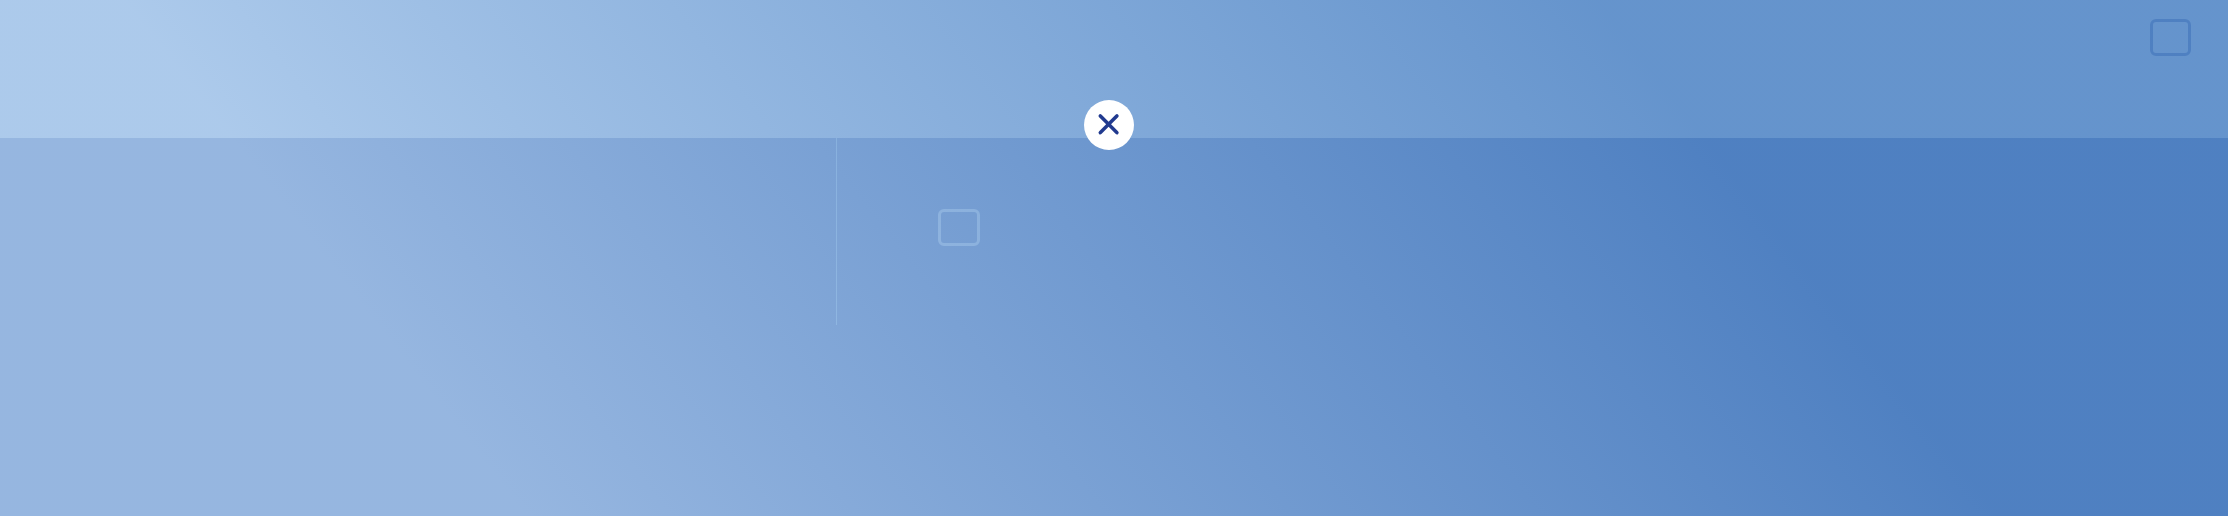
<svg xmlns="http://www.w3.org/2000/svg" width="2228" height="516">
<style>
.a{font:300 88px Dongle;fill:#213a8f}
</style>
<defs>
<linearGradient id="g1" gradientUnits="userSpaceOnUse" x1="1932" y1="-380" x2="297" y2="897"><stop offset="0.24" stop-color="#5488c7" stop-opacity="0.9"/><stop offset="0.8" stop-color="#a3c4e9" stop-opacity="0.9"/></linearGradient>
</defs>
<rect width="100%" height="100%" fill="#213a8f"/>
<path fill="#fff" d="M0 0h2228v138H0z"/>
<rect fill="none" stroke="#213a8f" stroke-width="3" x="2151.5" y="20.5" width="38" height="34" rx="4.5"/>
<path fill="#bce4fa" d="M836 138h1v187H836z"/>
<rect fill="none" stroke="#fff" stroke-width="3" x="939.5" y="210.5" width="39" height="34" rx="4.5"/>
<path fill="url(#g1)" d="M0 0h2228v516H0z"/>
<circle fill="#fff" cx="1109" cy="125" r="25"/>
<text class="a" x="1091" y="141">×</text>
</svg>
